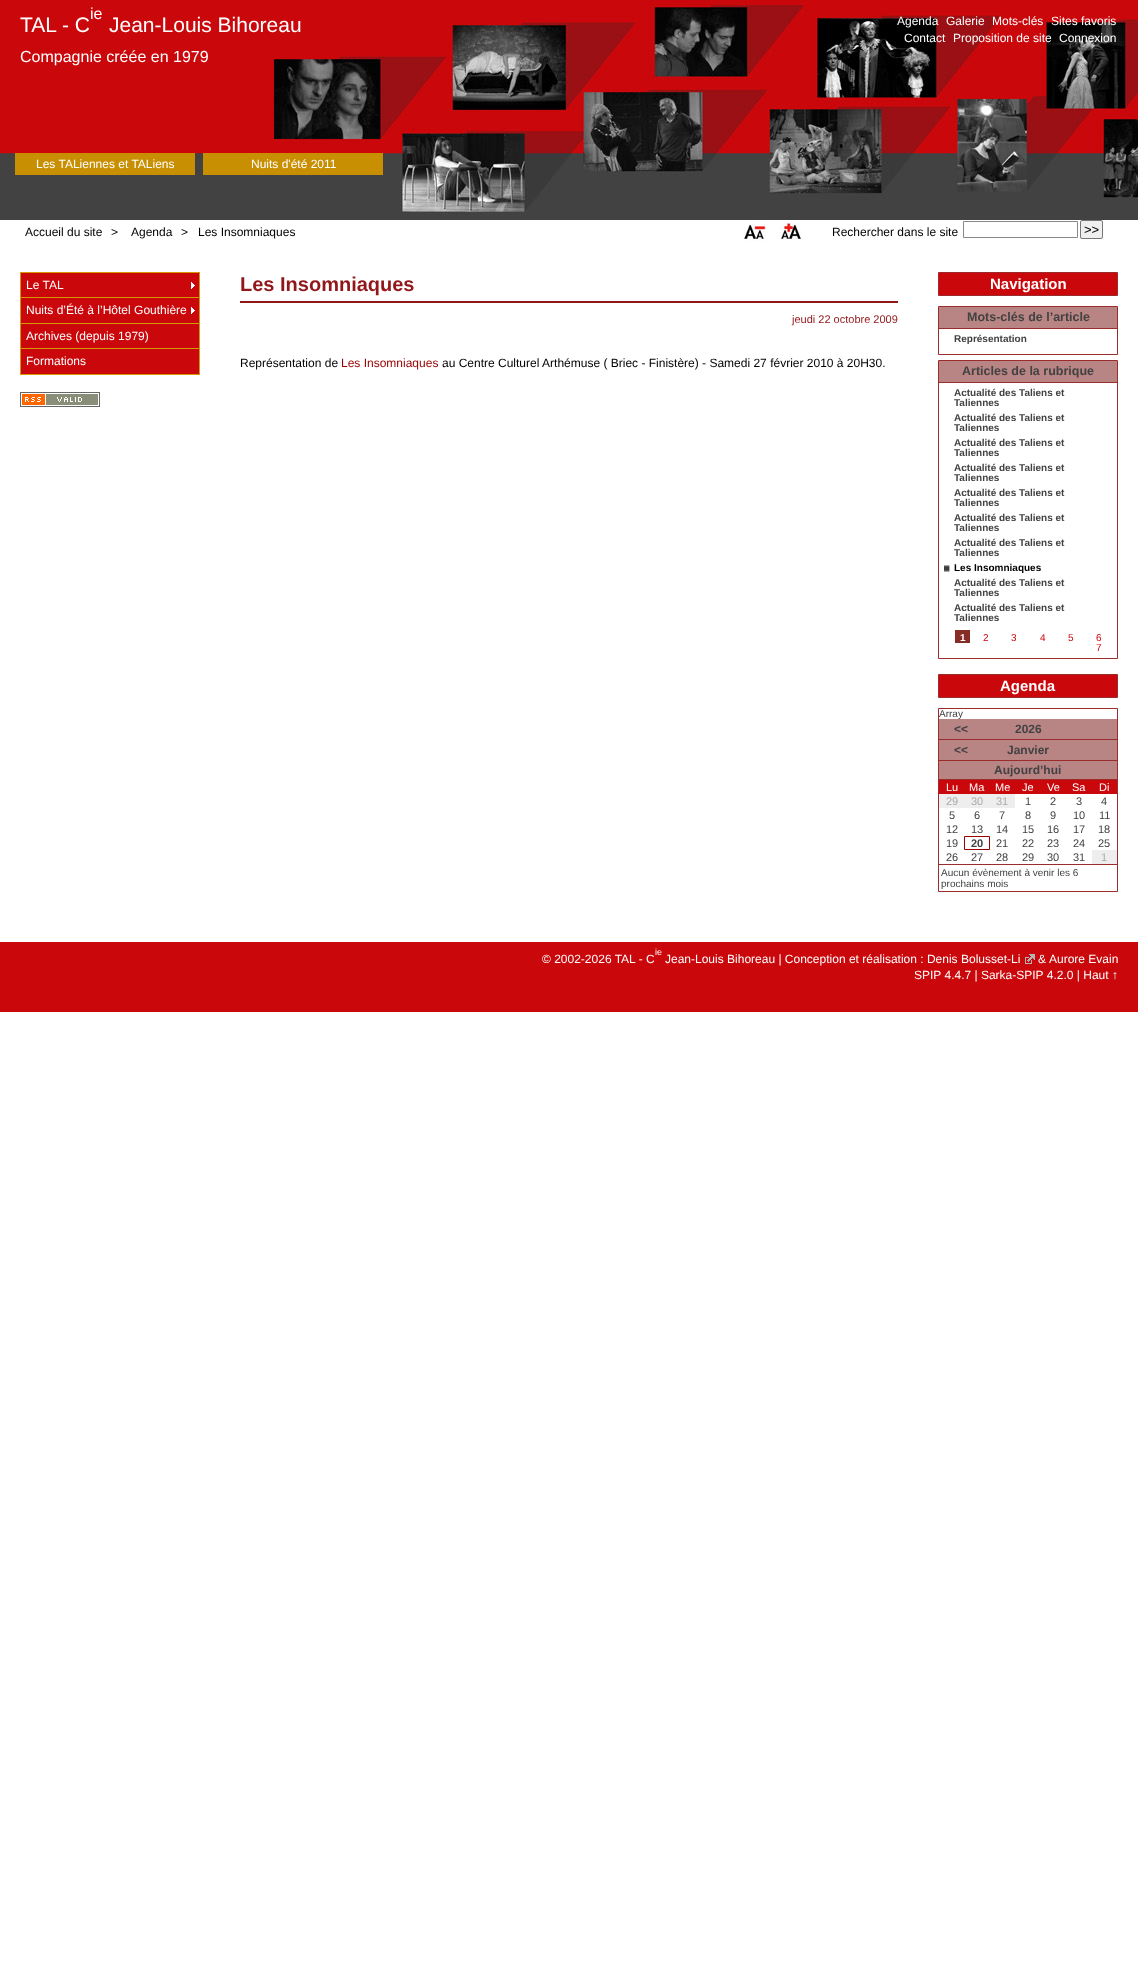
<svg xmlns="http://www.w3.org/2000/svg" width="1138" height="1963">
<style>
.a{font:16px Liberation Sans;fill:#fff}
.b{font:21px Liberation Sans;fill:#fff}
.c{font:12px Liberation Sans;fill:#fff}
.d{font:12px Liberation Sans;fill:#000}
.e{font:13px Liberation Sans;fill:#000}
.f{font:bold 20px Liberation Sans;fill:#92171b}
.g{font:11px Liberation Sans;fill:#92171b}
.h{font:12px Liberation Sans;fill:#900}
.i{font:bold 15px Liberation Sans;fill:#fff}
.j{font:bold 12.5px Liberation Sans;fill:#424242}
.k{font:bold 10px Liberation Sans;fill:#424242}
.l{font:bold 10px Liberation Sans;fill:#000}
.m{font:bold 10px Liberation Sans;fill:#fff}
.n{font:10px Liberation Sans;fill:#ca070b}
.o{font:10px Liberation Sans;fill:#424242}
.p{font:bold 12px Liberation Sans;fill:#424242}
.q{font:11px Liberation Sans;fill:#fff}
.r{font:11px Liberation Sans;fill:#aaa}
.s{font:11px Liberation Sans;fill:#424242}
.t{font:bold 11px Liberation Sans;fill:#424242}
.u{font:9px Liberation Sans;fill:#fff}
</style>
<rect width="100%" height="100%" fill="#fff"/>
<image href="1.png" x="0" y="0" width="1138" height="153"/>
<path fill="#424242" d="M0 215h1138v5H0z"/>
<image href="2.png" x="0" y="153" width="1138" height="62"/>
<path fill="#c98f03" d="M15 153h180v22H15z"/>
<path fill="#c98f03" d="M203 153h180v22H203z"/>
<image href="3.png" x="743" y="223" width="23" height="18"/>
<image href="4.png" x="779" y="223" width="22" height="17"/>
<path fill="none" stroke="#888" d="M963.5 221.5h114v16H963.5z"/>
<rect fill="#efefef" stroke="#767676" x="1080.5" y="220.5" width="22" height="18" rx="1.5"/>
<path fill="#ca070b" d="M21 324h178v50H21z"/>
<path fill="#d69800" d="M20 272h180v1H20z"/>
<path fill="#d69800" d="M199 272h1v103H199z"/>
<path fill="#d69800" d="M20 272h1v103H20z"/>
<path fill="#d69800" d="M21 297h178v1H21z"/>
<path fill="#ca070b" d="M21 273h178v24H21z"/>
<image href="5.png" x="191" y="282" width="4" height="7"/>
<path fill="#d69800" d="M21 323h178v1H21z"/>
<path fill="#ca070b" d="M21 298h178v25H21z"/>
<image href="5.png" x="191" y="307" width="4" height="7"/>
<path fill="#d69800" d="M21 348h178v1H21z"/>
<path fill="#d69800" d="M21 374h178v1H21z"/>
<image href="6.png" x="20" y="392" width="80" height="15"/>
<path fill="#92171b" d="M240 301h658v2H240z"/>
<path fill="#ca070b" stroke="#9b2c2c" d="M938.5 272.5h179v23H938.5z"/>
<path fill="none" stroke="#9b2c2c" d="M938.5 306.5h179v48H938.5z"/>
<path fill="#b88484" d="M939 307h178v21H939z"/>
<path fill="#9b2c2c" d="M939 328h178v1H939z"/>
<path fill="none" stroke="#9b2c2c" d="M938.5 360.5h179v298H938.5z"/>
<path fill="#b88484" d="M939 361h178v21H939z"/>
<path fill="#9b2c2c" d="M939 382h178v1H939z"/>
<image href="7.png" x="944" y="565" width="6" height="7"/>
<path fill="#862d28" d="M955 630h15v13H955z"/>
<path fill="#ca070b" stroke="#9b2c2c" d="M938.5 674.5h179v23H938.5z"/>
<path fill="none" stroke="#9b2c2c" d="M938.5 708.5h179v183H938.5z"/>
<path fill="#b88484" d="M939 719h178v20H939z"/>
<path fill="#9b2c2c" d="M939 739h178v1H939z"/>
<path fill="#b88484" d="M939 740h178v39H939z"/>
<path fill="#9b2c2c" d="M939 760h178v1H939z"/>
<path fill="#9b2c2c" d="M939 779h178v1H939z"/>
<path fill="#ca070b" d="M939 780h178v14H939z"/>
<path fill="#eee" d="M939 794h76v14H939z"/>
<path fill="none" stroke="#900" d="M964.5 836.5h25v13H964.5z"/>
<path fill="#eee" d="M1092 850h25v14H1092z"/>
<path fill="#9b2c2c" d="M939 864h178v1H939z"/>
<path fill="#ca070b" d="M0 942h1138v70H0z"/>
<image href="8.png" x="1025" y="954" width="10" height="10"/>
<text class="a" x="90" y="19">ie</text>
<text class="b" x="20" y="32">TAL - C</text>
<text class="b" x="109" y="32">Jean-Louis Bihoreau</text>
<text class="a" x="20" y="62">Compagnie créée en 1979</text>
<text class="c" x="897" y="25">Agenda</text>
<text class="c" x="946" y="25">Galerie</text>
<text class="c" x="992" y="25">Mots-clés</text>
<text class="c" x="1051" y="25">Sites favoris</text>
<text class="c" x="904" y="42">Contact</text>
<text class="c" x="953" y="42">Proposition de site</text>
<text class="c" x="1059" y="42">Connexion</text>
<text class="c" x="36" y="168">Les TALiennes et TALiens</text>
<text class="c" x="251" y="168">Nuits d'été 2011</text>
<text class="d" x="25" y="236">Accueil du site</text>
<text class="d" x="111" y="236">&gt;</text>
<text class="d" x="131" y="236">Agenda</text>
<text class="d" x="181" y="236">&gt;</text>
<text class="d" x="198" y="236">Les Insomniaques</text>
<text class="d" x="832" y="236">Rechercher dans le site</text>
<text class="e" x="1084" y="234">&gt;&gt;</text>
<text class="c" x="26" y="289">Le TAL</text>
<text class="c" x="26" y="314">Nuits d’Été à l’Hôtel Gouthière</text>
<text class="c" x="26" y="340">Archives (depuis 1979)</text>
<text class="c" x="26" y="365">Formations</text>
<text class="f" x="240" y="291">Les Insomniaques</text>
<text class="g" x="792" y="323">jeudi 22 octobre 2009</text>
<text class="d" x="240" y="367">Représentation de</text>
<text class="h" x="341" y="367">Les Insomniaques</text>
<text class="d" x="442" y="367">au Centre Culturel Arthémuse ( Briec - Finistère) - Samedi 27 février 2010 à 20H30.</text>
<text class="i" x="990" y="289">Navigation</text>
<text class="j" x="967" y="321">Mots-clés de l’article</text>
<text class="k" x="954" y="342">Représentation</text>
<text class="j" x="962" y="375">Articles de la rubrique</text>
<text class="k" x="954" y="396">Actualité des Taliens et</text>
<text class="k" x="954" y="406">Taliennes</text>
<text class="k" x="954" y="421">Actualité des Taliens et</text>
<text class="k" x="954" y="431">Taliennes</text>
<text class="k" x="954" y="446">Actualité des Taliens et</text>
<text class="k" x="954" y="456">Taliennes</text>
<text class="k" x="954" y="471">Actualité des Taliens et</text>
<text class="k" x="954" y="481">Taliennes</text>
<text class="k" x="954" y="496">Actualité des Taliens et</text>
<text class="k" x="954" y="506">Taliennes</text>
<text class="k" x="954" y="521">Actualité des Taliens et</text>
<text class="k" x="954" y="531">Taliennes</text>
<text class="k" x="954" y="546">Actualité des Taliens et</text>
<text class="k" x="954" y="556">Taliennes</text>
<text class="l" x="954" y="571">Les Insomniaques</text>
<text class="k" x="954" y="586">Actualité des Taliens et</text>
<text class="k" x="954" y="596">Taliennes</text>
<text class="k" x="954" y="611">Actualité des Taliens et</text>
<text class="k" x="954" y="621">Taliennes</text>
<text class="m" x="960" y="641">1</text>
<text class="n" x="983" y="641">2</text>
<text class="n" x="1011" y="641">3</text>
<text class="n" x="1040" y="641">4</text>
<text class="n" x="1068" y="641">5</text>
<text class="n" x="1096" y="641">6</text>
<text class="n" x="1096" y="651">7</text>
<text class="i" x="1000" y="691">Agenda</text>
<text class="o" x="939" y="717">Array</text>
<text class="p" x="954" y="733">&lt;&lt;</text>
<text class="p" x="1015" y="733">2026</text>
<text class="p" x="954" y="754">&lt;&lt;</text>
<text class="p" x="1007" y="754">Janvier</text>
<text class="p" x="994" y="774">Aujourd’hui</text>
<text class="q" x="946" y="791">Lu</text>
<text class="q" x="969" y="791">Ma</text>
<text class="q" x="995" y="791">Me</text>
<text class="q" x="1022" y="791">Je</text>
<text class="q" x="1047" y="791">Ve</text>
<text class="q" x="1072" y="791">Sa</text>
<text class="q" x="1099" y="791">Di</text>
<text class="r" x="946" y="805">29</text>
<text class="r" x="971" y="805">30</text>
<text class="r" x="996" y="805">31</text>
<text class="s" x="1025" y="805">1</text>
<text class="s" x="1050" y="805">2</text>
<text class="s" x="1076" y="805">3</text>
<text class="s" x="1101" y="805">4</text>
<text class="s" x="949" y="819">5</text>
<text class="s" x="974" y="819">6</text>
<text class="s" x="999" y="819">7</text>
<text class="s" x="1025" y="819">8</text>
<text class="s" x="1050" y="819">9</text>
<text class="s" x="1073" y="819">10</text>
<text class="s" x="1099" y="819">11</text>
<text class="s" x="946" y="833">12</text>
<text class="s" x="971" y="833">13</text>
<text class="s" x="996" y="833">14</text>
<text class="s" x="1022" y="833">15</text>
<text class="s" x="1047" y="833">16</text>
<text class="s" x="1073" y="833">17</text>
<text class="s" x="1098" y="833">18</text>
<text class="s" x="946" y="847">19</text>
<text class="t" x="971" y="847">20</text>
<text class="s" x="996" y="847">21</text>
<text class="s" x="1022" y="847">22</text>
<text class="s" x="1047" y="847">23</text>
<text class="s" x="1073" y="847">24</text>
<text class="s" x="1098" y="847">25</text>
<text class="s" x="946" y="861">26</text>
<text class="s" x="971" y="861">27</text>
<text class="s" x="996" y="861">28</text>
<text class="s" x="1022" y="861">29</text>
<text class="s" x="1047" y="861">30</text>
<text class="s" x="1073" y="861">31</text>
<text class="r" x="1101" y="861">1</text>
<text class="o" x="941" y="876">Aucun évènement à venir les 6</text>
<text class="o" x="941" y="887">prochains mois</text>
<text class="u" x="655" y="955">ie</text>
<text class="c" x="542" y="963">© 2002-2026 TAL - C</text>
<text class="c" x="665" y="963">Jean-Louis Bihoreau | Conception et réalisation : Denis Bolusset-Li</text>
<text class="c" x="1038" y="963">&amp;</text>
<text class="c" x="1049" y="963">Aurore Evain</text>
<text class="c" x="914" y="979">SPIP 4.4.7 | Sarka-SPIP 4.2.0 | Haut ↑</text>
</svg>
